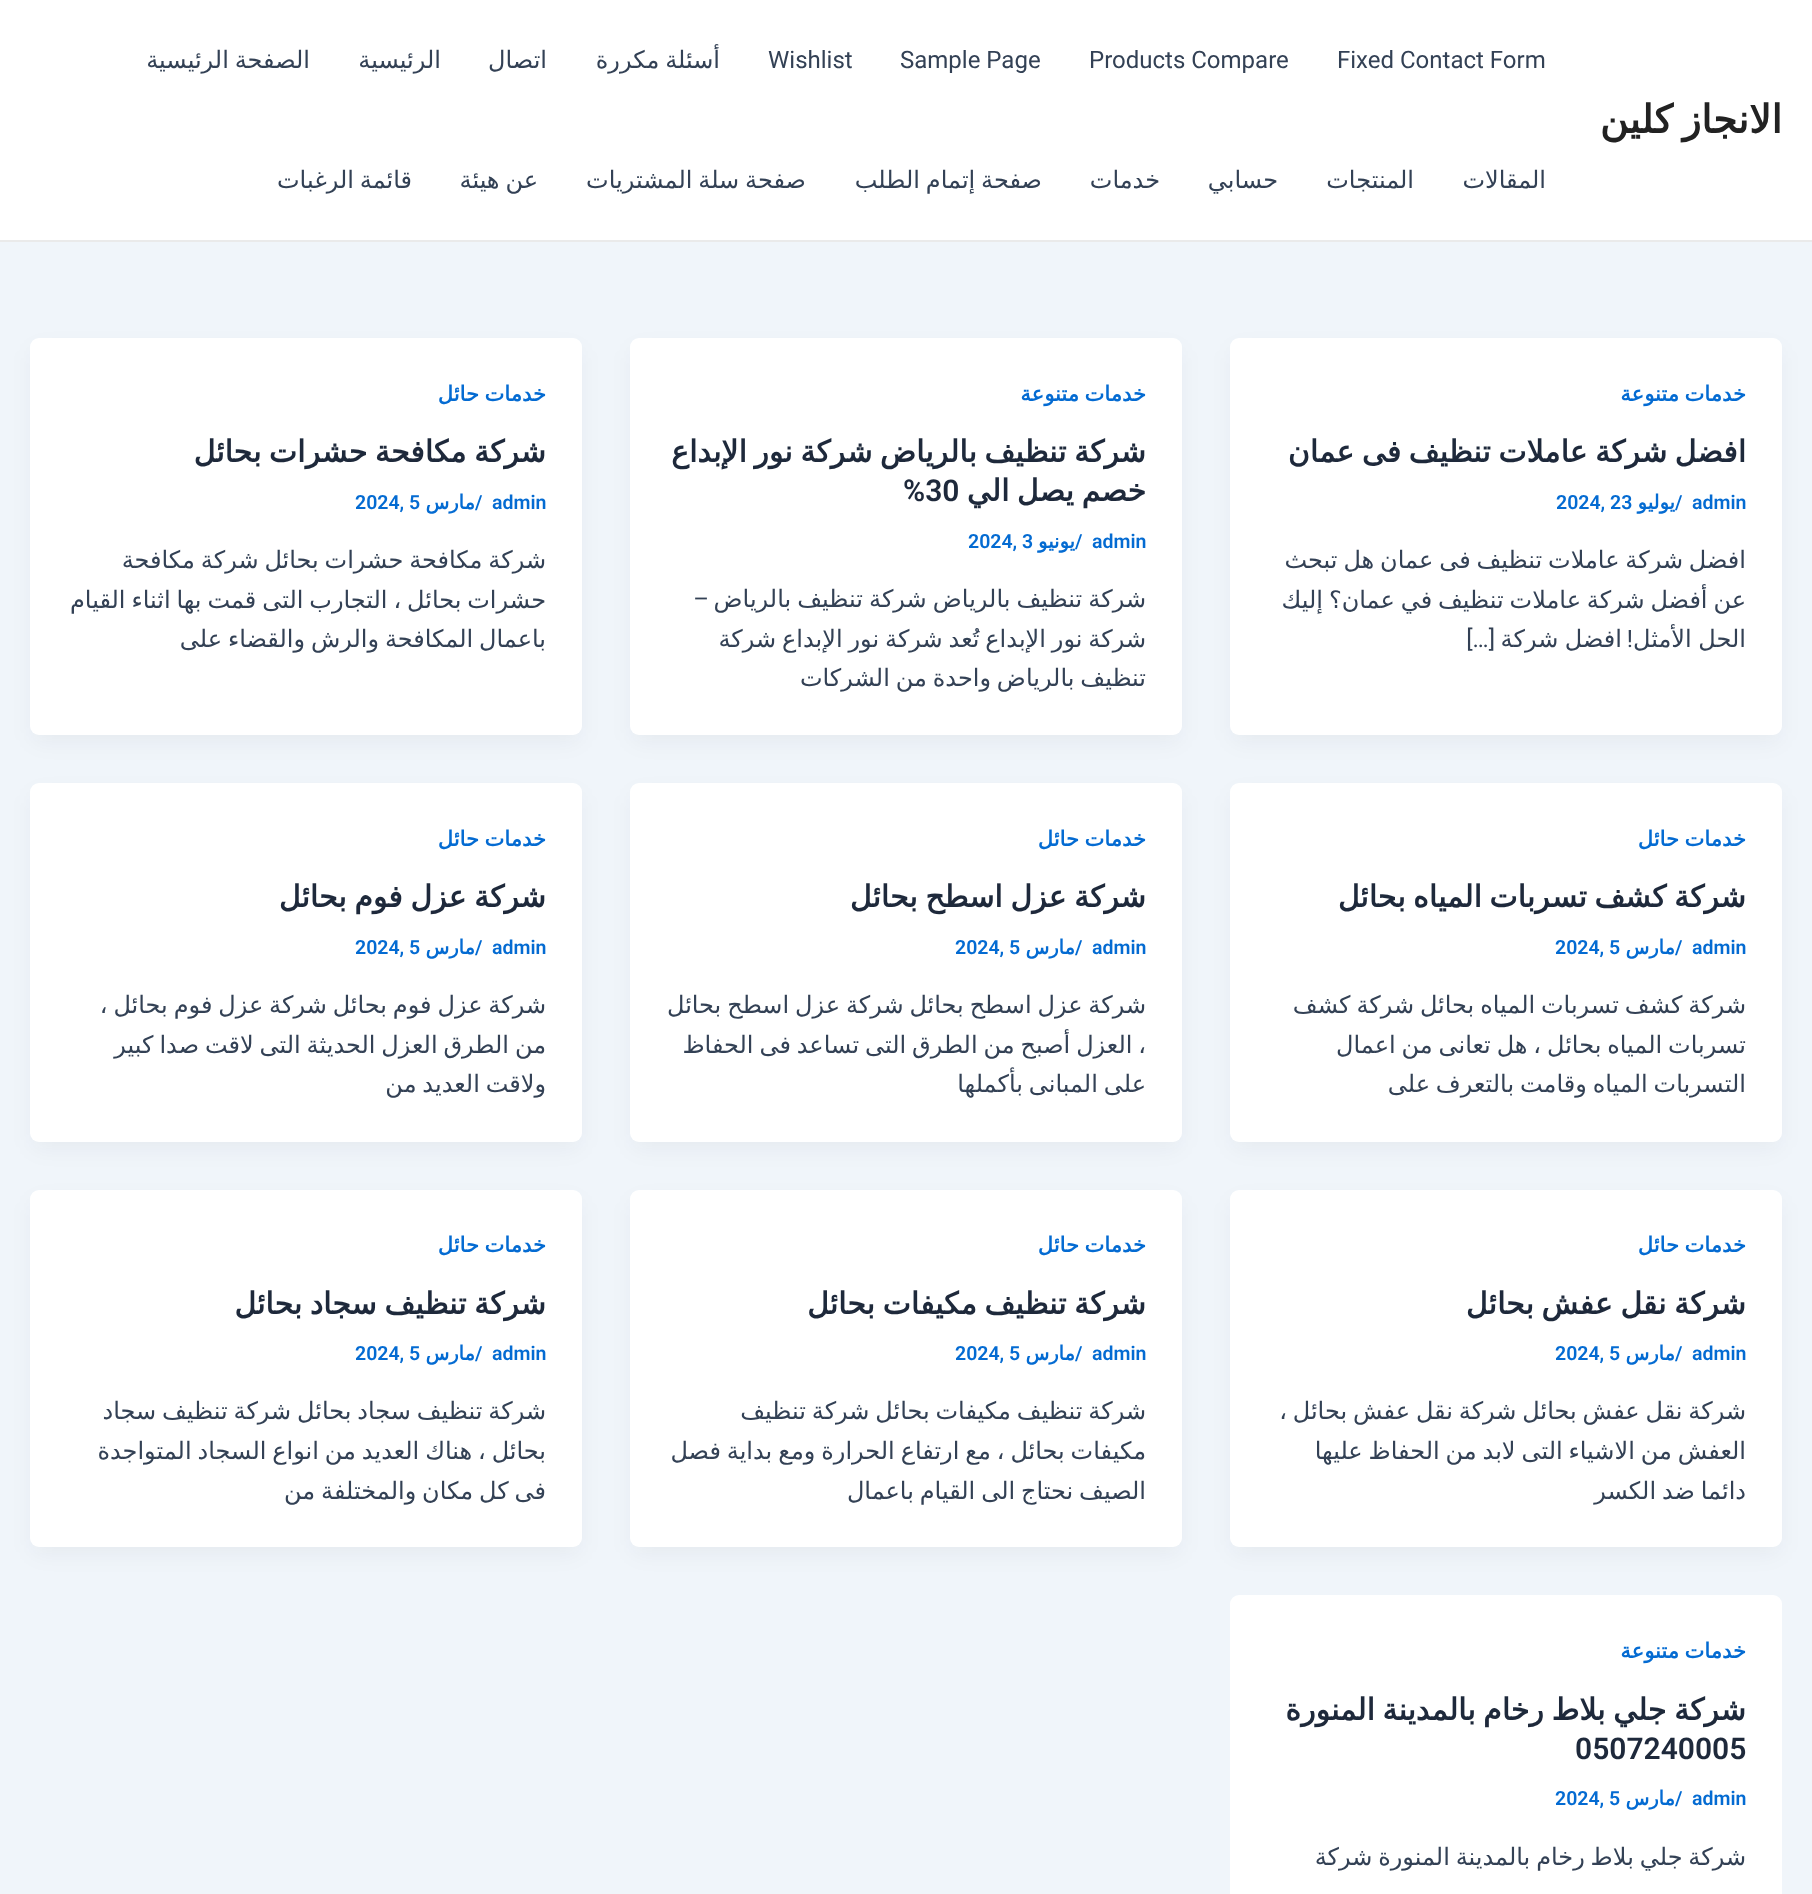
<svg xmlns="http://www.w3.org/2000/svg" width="1812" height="1894">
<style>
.a{font:bold 39px DejaVu Sans;direction:rtl;fill:#222}
.b{font:24px Roboto;fill:#334155}
.c{font:24px DejaVu Sans;direction:rtl;fill:#334155}
.d{font:bold 21px DejaVu Sans;direction:rtl;fill:#046bd2}
.e{font:bold 30px DejaVu Sans;direction:rtl;fill:#1e293b}
.f{font:600 19.5px Roboto;fill:#046bd2}
.g{font:bold 19.5px DejaVu Sans;direction:rtl;fill:#046bd2}
.h{font:24px Roboto;direction:rtl;fill:#334155}
.i{font:600 30px Roboto;fill:#1e293b}
</style>
<rect width="100%" height="100%" fill="#f0f5fa"/>
<path fill="#fff" d="M0 0h1812v240H0z"/>
<path fill="#eaeaea" d="M0 240h1812v2H0z"/>
<rect fill="#1018280d" filter="blur(11px)" x="1233" y="350" width="546" height="391" rx="6"/>
<rect fill="#fff" x="1230" y="338" width="552" height="397" rx="9"/>
<rect fill="#1018280d" filter="blur(11px)" x="633" y="350" width="546" height="391" rx="6"/>
<rect fill="#fff" x="630" y="338" width="552" height="397" rx="9"/>
<rect fill="#1018280d" filter="blur(11px)" x="33" y="350" width="546" height="391" rx="6"/>
<rect fill="#fff" x="30" y="338" width="552" height="397" rx="9"/>
<rect fill="#1018280d" filter="blur(11px)" x="1233" y="795" width="546" height="353" rx="6"/>
<rect fill="#fff" x="1230" y="783" width="552" height="359" rx="9"/>
<rect fill="#1018280d" filter="blur(11px)" x="633" y="795" width="546" height="353" rx="6"/>
<rect fill="#fff" x="630" y="783" width="552" height="359" rx="9"/>
<rect fill="#1018280d" filter="blur(11px)" x="33" y="795" width="546" height="353" rx="6"/>
<rect fill="#fff" x="30" y="783" width="552" height="359" rx="9"/>
<rect fill="#1018280d" filter="blur(11px)" x="1233" y="1202" width="546" height="351" rx="6"/>
<rect fill="#fff" x="1230" y="1190" width="552" height="357" rx="9"/>
<rect fill="#1018280d" filter="blur(11px)" x="633" y="1202" width="546" height="351" rx="6"/>
<rect fill="#fff" x="630" y="1190" width="552" height="357" rx="9"/>
<rect fill="#1018280d" filter="blur(11px)" x="33" y="1202" width="546" height="351" rx="6"/>
<rect fill="#fff" x="30" y="1190" width="552" height="357" rx="9"/>
<rect fill="#fff" x="1230" y="1595" width="552" height="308" rx="9"/>
<text class="a" x="1782" y="133" word-spacing="-3">الانجاز كلين</text>
<text class="b" x="1337" y="68">Fixed Contact Form</text>
<text class="b" x="1089" y="68">Products Compare</text>
<text class="b" x="900" y="68">Sample Page</text>
<text class="b" x="768" y="68">Wishlist</text>
<text class="c" x="720" y="68" word-spacing="-1.75">أسئلة مكررة</text>
<text class="c" x="547" y="68">اتصال</text>
<text class="c" x="441" y="68">الرئيسية</text>
<text class="c" x="310" y="68" word-spacing="-1.75">الصفحة الرئيسية</text>
<text class="c" x="1546" y="188">المقالات</text>
<text class="c" x="1414" y="188">المنتجات</text>
<text class="c" x="1278" y="188">حسابي</text>
<text class="c" x="1160" y="188">خدمات</text>
<text class="c" x="1042" y="188" word-spacing="-1.75">صفحة إتمام الطلب</text>
<text class="c" x="806" y="188" word-spacing="-1.75">صفحة سلة المشتريات</text>
<text class="c" x="538" y="188" word-spacing="-1.75">عن هيئة</text>
<text class="c" x="412" y="188" word-spacing="-1.75">قائمة الرغبات</text>
<text class="d" x="1746" y="401" word-spacing="-1">خدمات متنوعة</text>
<text class="e" x="1746" y="462" word-spacing="-2">افضل شركة عاملات تنظيف فى عمان</text>
<text class="f" x="1692" y="509">admin</text>
<text class="f" x="1675" y="509">/</text>
<text class="g" x="1675" y="509">يوليو</text>
<text class="f" x="1556" y="509">2024, 23</text>
<text class="c" x="1746" y="568" word-spacing="-1.75">افضل شركة عاملات تنظيف فى عمان هل تبحث</text>
<text class="c" x="1746" y="608" word-spacing="-1.75">عن أفضل شركة عاملات تنظيف في عمان؟ إليك</text>
<text class="c" x="1746" y="647" word-spacing="-1">الحل الأمثل</text>
<text class="h" x="1633" y="647">!</text>
<text class="c" x="1622" y="647" word-spacing="-1">افضل شركة</text>
<text class="h" x="1495" y="647">[…]</text>
<text class="d" x="1146" y="401" word-spacing="-1">خدمات متنوعة</text>
<text class="e" x="1146" y="462" word-spacing="-2">شركة تنظيف بالرياض شركة نور الإبداع</text>
<text class="e" x="1146" y="501" word-spacing="-2">خصم يصل الي</text>
<text class="i" x="903" y="501">%30</text>
<text class="f" x="1092" y="548">admin</text>
<text class="f" x="1075" y="548">/</text>
<text class="g" x="1075" y="548">يونيو</text>
<text class="f" x="968" y="548">2024, 3</text>
<text class="c" x="1146" y="607" word-spacing="-1.5">شركة تنظيف بالرياض شركة تنظيف بالرياض</text>
<text class="h" x="709" y="607">–</text>
<text class="c" x="1146" y="647" word-spacing="-1.75">شركة نور الإبداع تُعد شركة نور الإبداع شركة</text>
<text class="c" x="1146" y="686" word-spacing="-1.75">تنظيف بالرياض واحدة من الشركات</text>
<text class="d" x="546" y="401" word-spacing="-1">خدمات حائل</text>
<text class="e" x="546" y="462" word-spacing="-2">شركة مكافحة حشرات بحائل</text>
<text class="f" x="492" y="509">admin</text>
<text class="f" x="475" y="509">/</text>
<text class="g" x="475" y="509">مارس</text>
<text class="f" x="355" y="509">2024, 5</text>
<text class="c" x="546" y="568" word-spacing="-1.75">شركة مكافحة حشرات بحائل شركة مكافحة</text>
<text class="c" x="546" y="608" word-spacing="-1.75">حشرات بحائل ، التجارب التى قمت بها اثناء القيام</text>
<text class="c" x="546" y="647" word-spacing="-1.75">باعمال المكافحة والرش والقضاء على</text>
<text class="d" x="1746" y="846" word-spacing="-1">خدمات حائل</text>
<text class="e" x="1746" y="907" word-spacing="-2">شركة كشف تسربات المياه بحائل</text>
<text class="f" x="1692" y="954">admin</text>
<text class="f" x="1675" y="954">/</text>
<text class="g" x="1675" y="954">مارس</text>
<text class="f" x="1555" y="954">2024, 5</text>
<text class="c" x="1746" y="1013" word-spacing="-1.75">شركة كشف تسربات المياه بحائل شركة كشف</text>
<text class="c" x="1746" y="1053" word-spacing="-1.75">تسربات المياه بحائل ، هل تعانى من اعمال</text>
<text class="c" x="1746" y="1092" word-spacing="-1.75">التسربات المياه وقامت بالتعرف على</text>
<text class="d" x="1146" y="846" word-spacing="-1">خدمات حائل</text>
<text class="e" x="1146" y="907" word-spacing="-2">شركة عزل اسطح بحائل</text>
<text class="f" x="1092" y="954">admin</text>
<text class="f" x="1075" y="954">/</text>
<text class="g" x="1075" y="954">مارس</text>
<text class="f" x="955" y="954">2024, 5</text>
<text class="c" x="1146" y="1013" word-spacing="-1.75">شركة عزل اسطح بحائل شركة عزل اسطح بحائل</text>
<text class="c" x="1146" y="1053" word-spacing="-1.75">، العزل أصبح من الطرق التى تساعد فى الحفاظ</text>
<text class="c" x="1146" y="1092" word-spacing="-1.75">على المبانى بأكملها</text>
<text class="d" x="546" y="846" word-spacing="-1">خدمات حائل</text>
<text class="e" x="546" y="907" word-spacing="-2">شركة عزل فوم بحائل</text>
<text class="f" x="492" y="954">admin</text>
<text class="f" x="475" y="954">/</text>
<text class="g" x="475" y="954">مارس</text>
<text class="f" x="355" y="954">2024, 5</text>
<text class="c" x="546" y="1013" word-spacing="-1.75">شركة عزل فوم بحائل شركة عزل فوم بحائل ،</text>
<text class="c" x="546" y="1053" word-spacing="-1.75">من الطرق العزل الحديثة التى لاقت صدا كبير</text>
<text class="c" x="546" y="1092" word-spacing="-1.75">ولاقت العديد من</text>
<text class="d" x="1746" y="1252" word-spacing="-1">خدمات حائل</text>
<text class="e" x="1746" y="1314" word-spacing="-2">شركة نقل عفش بحائل</text>
<text class="f" x="1692" y="1360">admin</text>
<text class="f" x="1675" y="1360">/</text>
<text class="g" x="1675" y="1360">مارس</text>
<text class="f" x="1555" y="1360">2024, 5</text>
<text class="c" x="1746" y="1419" word-spacing="-1.75">شركة نقل عفش بحائل شركة نقل عفش بحائل ،</text>
<text class="c" x="1746" y="1459" word-spacing="-1.75">العفش من الاشياء التى لابد من الحفاظ عليها</text>
<text class="c" x="1746" y="1499" word-spacing="-1.75">دائما ضد الكسر</text>
<text class="d" x="1146" y="1252" word-spacing="-1">خدمات حائل</text>
<text class="e" x="1146" y="1314" word-spacing="-2">شركة تنظيف مكيفات بحائل</text>
<text class="f" x="1092" y="1360">admin</text>
<text class="f" x="1075" y="1360">/</text>
<text class="g" x="1075" y="1360">مارس</text>
<text class="f" x="955" y="1360">2024, 5</text>
<text class="c" x="1146" y="1419" word-spacing="-1.75">شركة تنظيف مكيفات بحائل شركة تنظيف</text>
<text class="c" x="1146" y="1459" word-spacing="-1.75">مكيفات بحائل ، مع ارتفاع الحرارة ومع بداية فصل</text>
<text class="c" x="1146" y="1499" word-spacing="-1.75">الصيف نحتاج الى القيام باعمال</text>
<text class="d" x="546" y="1252" word-spacing="-1">خدمات حائل</text>
<text class="e" x="546" y="1314" word-spacing="-2">شركة تنظيف سجاد بحائل</text>
<text class="f" x="492" y="1360">admin</text>
<text class="f" x="475" y="1360">/</text>
<text class="g" x="475" y="1360">مارس</text>
<text class="f" x="355" y="1360">2024, 5</text>
<text class="c" x="546" y="1419" word-spacing="-1.75">شركة تنظيف سجاد بحائل شركة تنظيف سجاد</text>
<text class="c" x="546" y="1459" word-spacing="-1.75">بحائل ، هناك العديد من انواع السجاد المتواجدة</text>
<text class="c" x="546" y="1499" word-spacing="-1.75">فى كل مكان والمختلفة من</text>
<text class="d" x="1746" y="1658" word-spacing="-1">خدمات متنوعة</text>
<text class="e" x="1746" y="1720" word-spacing="-2">شركة جلي بلاط رخام بالمدينة المنورة</text>
<text class="i" x="1575" y="1759">0507240005</text>
<text class="f" x="1692" y="1805">admin</text>
<text class="f" x="1675" y="1805">/</text>
<text class="g" x="1675" y="1805">مارس</text>
<text class="f" x="1555" y="1805">2024, 5</text>
<text class="c" x="1746" y="1865" word-spacing="-1.75">شركة جلي بلاط رخام بالمدينة المنورة شركة</text>
</svg>
